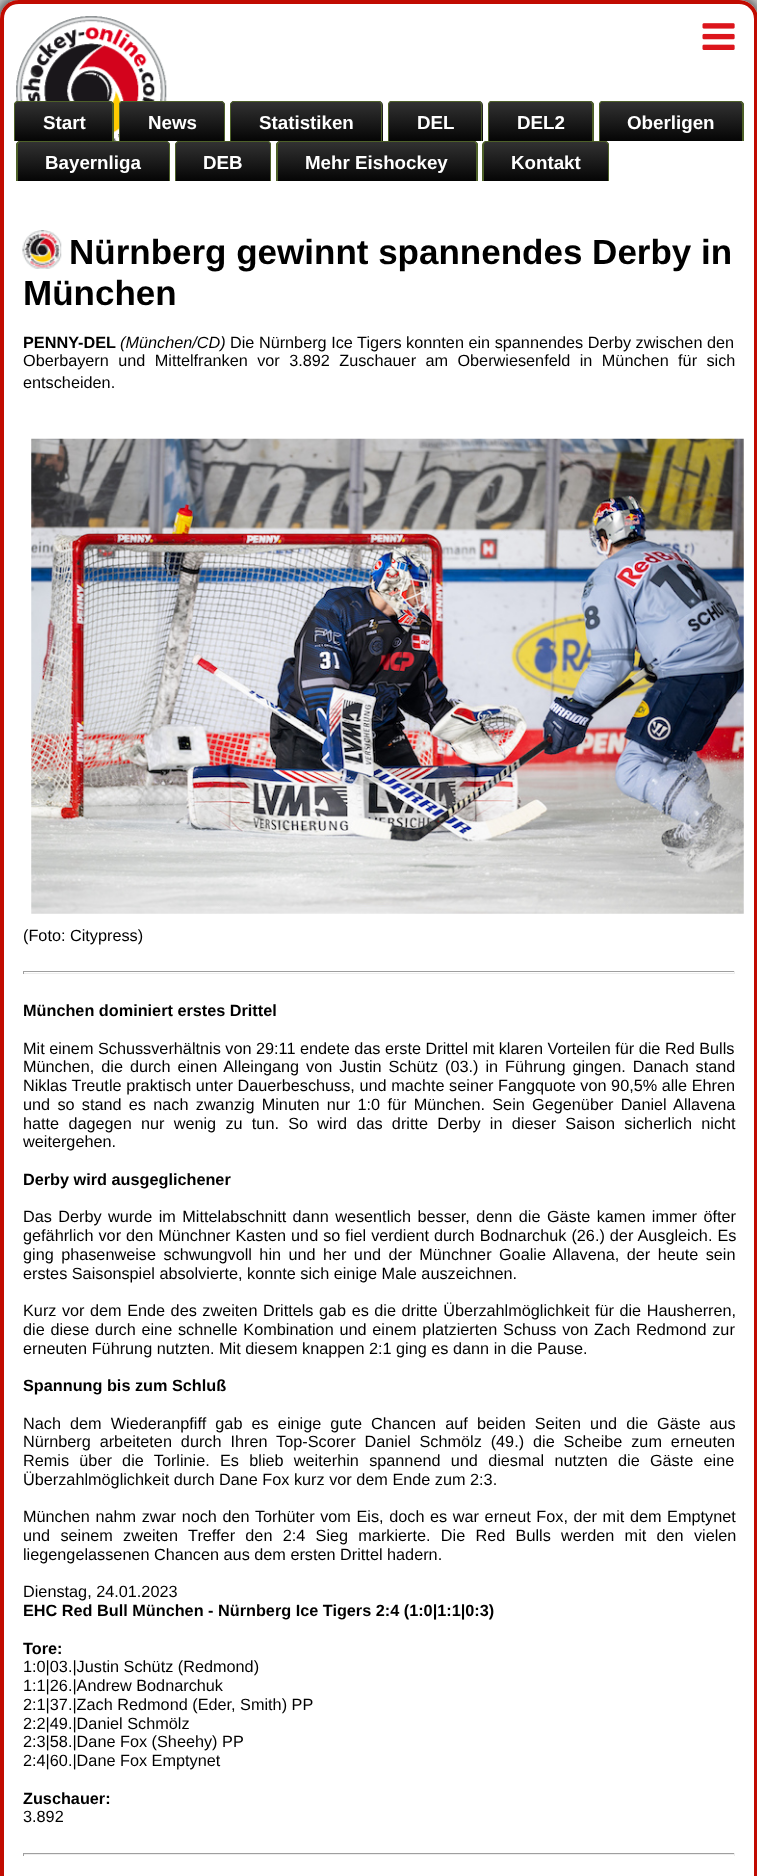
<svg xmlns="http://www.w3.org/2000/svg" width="757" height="1876">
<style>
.a{font:bold 18.75px Liberation Sans;fill:#fff}
.b{font:bold 35px Liberation Sans;fill:#000}
.c{font:bold 16.25px Liberation Sans;fill:#000}
.d{font:italic 16.25px Liberation Sans;fill:#000}
.e{font:16.25px Liberation Sans;fill:#000}
</style>
<defs>
<linearGradient id="g1" gradientUnits="userSpaceOnUse" x1="379" y1="0" x2="379" y2="1876"><stop offset="0" stop-color="#bfbfbf"/><stop offset="0.33" stop-color="#fff"/></linearGradient>
<linearGradient id="g2" gradientUnits="userSpaceOnUse" x1="64" y1="101" x2="64" y2="141"><stop offset="0" stop-color="#333"/><stop offset="1" stop-color="#050505"/></linearGradient>
<linearGradient id="g3" gradientUnits="userSpaceOnUse" x1="172" y1="101" x2="172" y2="141"><stop offset="0" stop-color="#333"/><stop offset="1" stop-color="#050505"/></linearGradient>
<linearGradient id="g4" gradientUnits="userSpaceOnUse" x1="306" y1="101" x2="306" y2="141"><stop offset="0" stop-color="#333"/><stop offset="1" stop-color="#050505"/></linearGradient>
<linearGradient id="g5" gradientUnits="userSpaceOnUse" x1="435" y1="101" x2="435" y2="141"><stop offset="0" stop-color="#333"/><stop offset="1" stop-color="#050505"/></linearGradient>
<linearGradient id="g6" gradientUnits="userSpaceOnUse" x1="541" y1="101" x2="541" y2="141"><stop offset="0" stop-color="#333"/><stop offset="1" stop-color="#050505"/></linearGradient>
<linearGradient id="g7" gradientUnits="userSpaceOnUse" x1="671" y1="101" x2="671" y2="141"><stop offset="0" stop-color="#333"/><stop offset="1" stop-color="#050505"/></linearGradient>
<linearGradient id="g8" gradientUnits="userSpaceOnUse" x1="93" y1="141" x2="93" y2="181"><stop offset="0" stop-color="#333"/><stop offset="1" stop-color="#050505"/></linearGradient>
<linearGradient id="g9" gradientUnits="userSpaceOnUse" x1="223" y1="141" x2="223" y2="181"><stop offset="0" stop-color="#333"/><stop offset="1" stop-color="#050505"/></linearGradient>
<linearGradient id="g10" gradientUnits="userSpaceOnUse" x1="377" y1="141" x2="377" y2="181"><stop offset="0" stop-color="#333"/><stop offset="1" stop-color="#050505"/></linearGradient>
<linearGradient id="g11" gradientUnits="userSpaceOnUse" x1="546" y1="141" x2="546" y2="181"><stop offset="0" stop-color="#333"/><stop offset="1" stop-color="#050505"/></linearGradient>
</defs>
<rect width="100%" height="100%" fill="#fff"/>
<path fill="url(#g1)" d="M0 0h757v19H0z"/>
<rect fill="#00000066" filter="blur(3px)" x="-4" y="-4" width="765" height="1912" rx="23"/>
<path fill="#fff" d="M19 0h720c10.5 0 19 8.5 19 19v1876h-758v-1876c0-10.5 8.5-19 19-19z"/>
<path fill="#c10b01" fill-rule="evenodd" d="M19 0h720c10 0 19 8 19 19v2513h-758v-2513c0-11 8-19 19-19zm0 4h720c8 0 15 6 15 15v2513h-750v-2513c0-9 6-15 15-15z"/>
<image href="1.png" x="16" y="16" width="151" height="125"/>
<image href="2.png" x="702" y="23" width="33" height="27"/>
<path fill="url(#g2)" d="M18 101h92c2 0 4 2 4 4v36h-100v-36c0-2 2-4 4-4z"/>
<path fill="#4e6129" fill-rule="evenodd" d="M18 101h92c2 0 4 2 4 4v36h-100v-36c0-2 1-4 4-4zm0 1h92c1 0 2 2 2 3v36h-97v-36c0-1 1-3 3-3z"/>
<path fill="url(#g3)" d="M123 101h98c2 0 4 2 4 4v36h-106v-36c0-2 2-4 4-4z"/>
<path fill="#4e6129" fill-rule="evenodd" d="M122 101h99c2 0 4 2 4 4v36h-106v-36c0-2 1-4 3-4zm0 1h99c2 0 3 2 3 3v36h-104v-36c0-1 1-3 2-3z"/>
<path fill="url(#g4)" d="M234 101h145c2 0 4 2 4 4v36h-153v-36c0-2 2-4 4-4z"/>
<path fill="#4e6129" fill-rule="evenodd" d="M234 101h145c2 0 3 2 3 4v36h-152v-36c0-2 2-4 4-4zm0 1h145c1 0 2 2 2 3v36h-150v-36c0-1 1-3 3-3z"/>
<path fill="url(#g5)" d="M392 101h87c2 0 4 2 4 4v36h-95v-36c0-2 2-4 4-4z"/>
<path fill="#4e6129" fill-rule="evenodd" d="M391 101h88c2 0 3 2 3 4v36h-94v-36c0-2 1-4 3-4zm0 1h88c1 0 2 2 2 3v36h-92v-36c0-1 1-3 2-3z"/>
<path fill="url(#g6)" d="M492 101h98c2 0 4 2 4 4v36h-106v-36c0-2 2-4 4-4z"/>
<path fill="#4e6129" fill-rule="evenodd" d="M491 101h99c2 0 4 2 4 4v36h-106v-36c0-2 1-4 3-4zm0 1h99c1 0 2 2 2 3v36h-103v-36c0-1 1-3 2-3z"/>
<path fill="url(#g7)" d="M603 101h137c2 0 4 2 4 4v36h-145v-36c0-2 2-4 4-4z"/>
<path fill="#4e6129" fill-rule="evenodd" d="M602 101h138c2 0 4 2 4 4v36h-145v-36c0-2 1-4 3-4zm0 1h138c1 0 2 2 2 3v36h-142v-36c0-1 1-3 2-3z"/>
<path fill="url(#g8)" d="M20 141h146c2 0 4 2 4 4v36h-154v-36c0-2 2-4 4-4z"/>
<path fill="#4e6129" fill-rule="evenodd" d="M20 141h146c2 0 4 2 4 4v36h-154v-36c0-2 2-4 4-4zm0 1h146c2 0 3 2 3 3v36h-151v-36c0-1 1-3 2-3z"/>
<path fill="url(#g9)" d="M179 141h88c2 0 4 2 4 4v36h-96v-36c0-2 2-4 4-4z"/>
<path fill="#4e6129" fill-rule="evenodd" d="M179 141h89c2 0 3 2 3 4v36h-96v-36c0-2 2-4 4-4zm0 1h89c1 0 2 2 2 3v36h-94v-36c0-1 1-3 3-3z"/>
<path fill="url(#g10)" d="M280 141h194c2 0 4 2 4 4v36h-202v-36c0-2 2-4 4-4z"/>
<path fill="#4e6129" fill-rule="evenodd" d="M280 141h194c2 0 4 2 4 4v36h-202v-36c0-2 2-4 4-4zm0 1h194c1 0 2 2 2 3v36h-198v-36c0-1 1-3 2-3z"/>
<path fill="url(#g11)" d="M487 141h118c2 0 4 2 4 4v36h-126v-36c0-2 2-4 4-4z"/>
<path fill="#4e6129" fill-rule="evenodd" d="M486 141h119c2 0 4 2 4 4v36h-127v-36c0-2 2-4 4-4zm0 1h119c1 0 3 2 3 3v36h-124v-36c0-1 1-3 2-3z"/>
<image href="3.png" x="22" y="230" width="40" height="39"/>
<image href="4.png" x="31" y="438" width="713" height="476"/>
<path fill="#9f9f9f" d="M23 971h712v1H23z"/>
<path fill="#eee" d="M734 971h1v3H734z"/>
<path fill="#eee" d="M23 973h712v1H23z"/>
<path fill="#9f9f9f" d="M23 971h1v3H23z"/>
<path fill="#9f9f9f" d="M23 1853h712v1H23z"/>
<path fill="#eee" d="M734 1853h1v3H734z"/>
<path fill="#eee" d="M23 1854h712v1H23z"/>
<path fill="#9f9f9f" d="M23 1853h1v3H23z"/>
<text class="a" x="43" y="129">Start</text>
<text class="a" x="148" y="129">News</text>
<text class="a" x="259" y="129">Statistiken</text>
<text class="a" x="417" y="129">DEL</text>
<text class="a" x="517" y="129">DEL2</text>
<text class="a" x="627" y="129">Oberligen</text>
<text class="a" x="45" y="169">Bayernliga</text>
<text class="a" x="203" y="169">DEB</text>
<text class="a" x="305" y="169">Mehr Eishockey</text>
<text class="a" x="511" y="169">Kontakt</text>
<text class="b" x="69" y="264">Nürnberg gewinnt spannendes Derby in</text>
<text class="b" x="23" y="305">München</text>
<text class="c" x="23" y="348">PENNY-DEL</text>
<text class="d" x="120" y="348">(München/CD)</text>
<text class="e" x="230" y="348">Die Nürnberg Ice Tigers konnten ein spannendes Derby zwischen den</text>
<text class="e" x="23" y="366" word-spacing="4.9">Oberbayern und Mittelfranken vor 3.892 Zuschauer am Oberwiesenfeld in München für sich</text>
<text class="e" x="23" y="388">entscheiden.</text>
<text class="e" x="23" y="941">(Foto: Citypress)</text>
<text class="c" x="23" y="1016">München dominiert erstes Drittel</text>
<text class="e" x="23" y="1054">Mit einem Schussverhältnis von 29:11 endete das erste Drittel mit klaren Vorteilen für die Red Bulls</text>
<text class="e" x="23" y="1072" word-spacing="2.4">München, die durch einen Alleingang von Justin Schütz (03.) in Führung gingen. Danach stand</text>
<text class="e" x="23" y="1091" word-spacing="0.1">Niklas Treutle praktisch unter Dauerbeschuss, und machte seiner Fangquote von 90,5% alle Ehren</text>
<text class="e" x="23" y="1110" word-spacing="2.75">und so stand es nach zwanzig Minuten nur 1:0 für München. Sein Gegenüber Daniel Allavena</text>
<text class="e" x="23" y="1129" word-spacing="4.75">hatte dagegen nur wenig zu tun. So wird das dritte Derby in dieser Saison sicherlich nicht</text>
<text class="e" x="23" y="1147">weitergehen.</text>
<text class="c" x="23" y="1185">Derby wird ausgeglichener</text>
<text class="e" x="23" y="1222" word-spacing="1.9">Das Derby wurde im Mittelabschnitt dann wesentlich besser, denn die Gäste kamen immer öfter</text>
<text class="e" x="23" y="1241" word-spacing="0.5">gefährlich vor den Münchner Kasten und so fiel verdient durch Bodnarchuk (26.) der Ausgleich. Es</text>
<text class="e" x="23" y="1260" word-spacing="2.9">ging phasenweise schwungvoll hin und her und der Münchner Goalie Allavena, der heute sein</text>
<text class="e" x="23" y="1279">erstes Saisonspiel absolvierte, konnte sich einige Male auszeichnen.</text>
<text class="e" x="23" y="1316" word-spacing="1">Kurz vor dem Ende des zweiten Drittels gab es die dritte Überzahlmöglichkeit für die Hausherren,</text>
<text class="e" x="23" y="1335" word-spacing="1.25">die diese durch eine schnelle Kombination und einem platzierten Schuss von Zach Redmond zur</text>
<text class="e" x="23" y="1354">erneuten Führung nutzten. Mit diesem knappen 2:1 ging es dann in die Pause.</text>
<text class="c" x="23" y="1391">Spannung bis zum Schluß</text>
<text class="e" x="23" y="1429" word-spacing="4.6">Nach dem Wiederanpfiff gab es einige gute Chancen auf beiden Seiten und die Gäste aus</text>
<text class="e" x="23" y="1447" word-spacing="4.4">Nürnberg arbeiteten durch Ihren Top-Scorer Daniel Schmölz (49.) die Scheibe zum erneuten</text>
<text class="e" x="23" y="1466" word-spacing="5.75">Remis über die Torlinie. Es blieb weiterhin spannend und diesmal nutzten die Gäste eine</text>
<text class="e" x="23" y="1485">Überzahlmöglichkeit durch Dane Fox kurz vor dem Ende zum 2:3.</text>
<text class="e" x="23" y="1522" word-spacing="1.1">München nahm zwar noch den Torhüter vom Eis, doch es war erneut Fox, der mit dem Emptynet</text>
<text class="e" x="23" y="1541" word-spacing="5.75">und seinem zweiten Treffer den 2:4 Sieg markierte. Die Red Bulls werden mit den vielen</text>
<text class="e" x="23" y="1560">liegengelassenen Chancen aus dem ersten Drittel hadern.</text>
<text class="e" x="23" y="1597">Dienstag, 24.01.2023</text>
<text class="c" x="23" y="1616">EHC Red Bull München - Nürnberg Ice Tigers 2:4 (1:0|1:1|0:3)</text>
<text class="c" x="23" y="1654">Tore:</text>
<text class="e" x="23" y="1672">1:0|03.|Justin Schütz (Redmond)</text>
<text class="e" x="23" y="1691">1:1|26.|Andrew Bodnarchuk</text>
<text class="e" x="23" y="1710">2:1|37.|Zach Redmond (Eder, Smith) PP</text>
<text class="e" x="23" y="1729">2:2|49.|Daniel Schmölz</text>
<text class="e" x="23" y="1747">2:3|58.|Dane Fox (Sheehy) PP</text>
<text class="e" x="23" y="1766">2:4|60.|Dane Fox Emptynet</text>
<text class="c" x="23" y="1804">Zuschauer:</text>
<text class="e" x="23" y="1822">3.892</text>
</svg>
